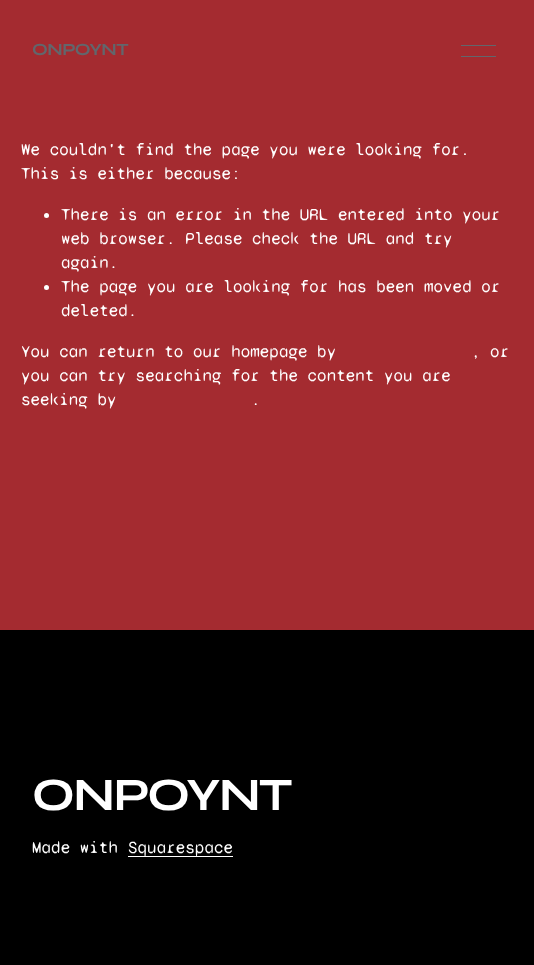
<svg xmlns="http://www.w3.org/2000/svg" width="534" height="965">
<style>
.a{font:bold 17.1px Syne;letter-spacing:-0.5px;fill:#62666c}
.b{font:17.1px Syne Mono;letter-spacing:0.15px;fill:#fff}
.c{font:bold 46.25px Syne;letter-spacing:-1.5px;fill:#fff}
</style>
<rect width="100%" height="100%" fill="#a42b30"/>
<path fill="#62666c" d="M461 45h35v1H461z"/>
<path fill="#62666c" d="M461 56h35v1H461z"/>
<circle fill="#fff" cx="46.5" cy="215.5" r="2.5"/>
<circle fill="#fff" cx="46.5" cy="287.5" r="2.5"/>
<path fill="#000" d="M0 630h534v335H0z"/>
<path fill="#fff" d="M128 856h105v1H128z"/>
<text class="a" x="32" y="55">ONPOYNT</text>
<text class="b" x="21" y="155">We couldn't find the page you were looking for.</text>
<text class="b" x="21" y="179">This is either because:</text>
<text class="b" x="61" y="220">There is an error in the URL entered into your</text>
<text class="b" x="61" y="244">web browser. Please check the URL and try</text>
<text class="b" x="61" y="268">again.</text>
<text class="b" x="61" y="292">The page you are looking for has been moved or</text>
<text class="b" x="61" y="316">deleted.</text>
<text class="b" x="21" y="357">You can return to our homepage by</text>
<text class="b" x="471" y="357">, or</text>
<text class="b" x="21" y="381">you can try searching for the content you are</text>
<text class="b" x="21" y="405">seeking by</text>
<text class="b" x="251" y="405">.</text>
<text class="c" x="32" y="810">ONPOYNT</text>
<text class="b" x="32" y="853">Made with</text>
<text class="b" x="128" y="853">Squarespace</text>
</svg>
